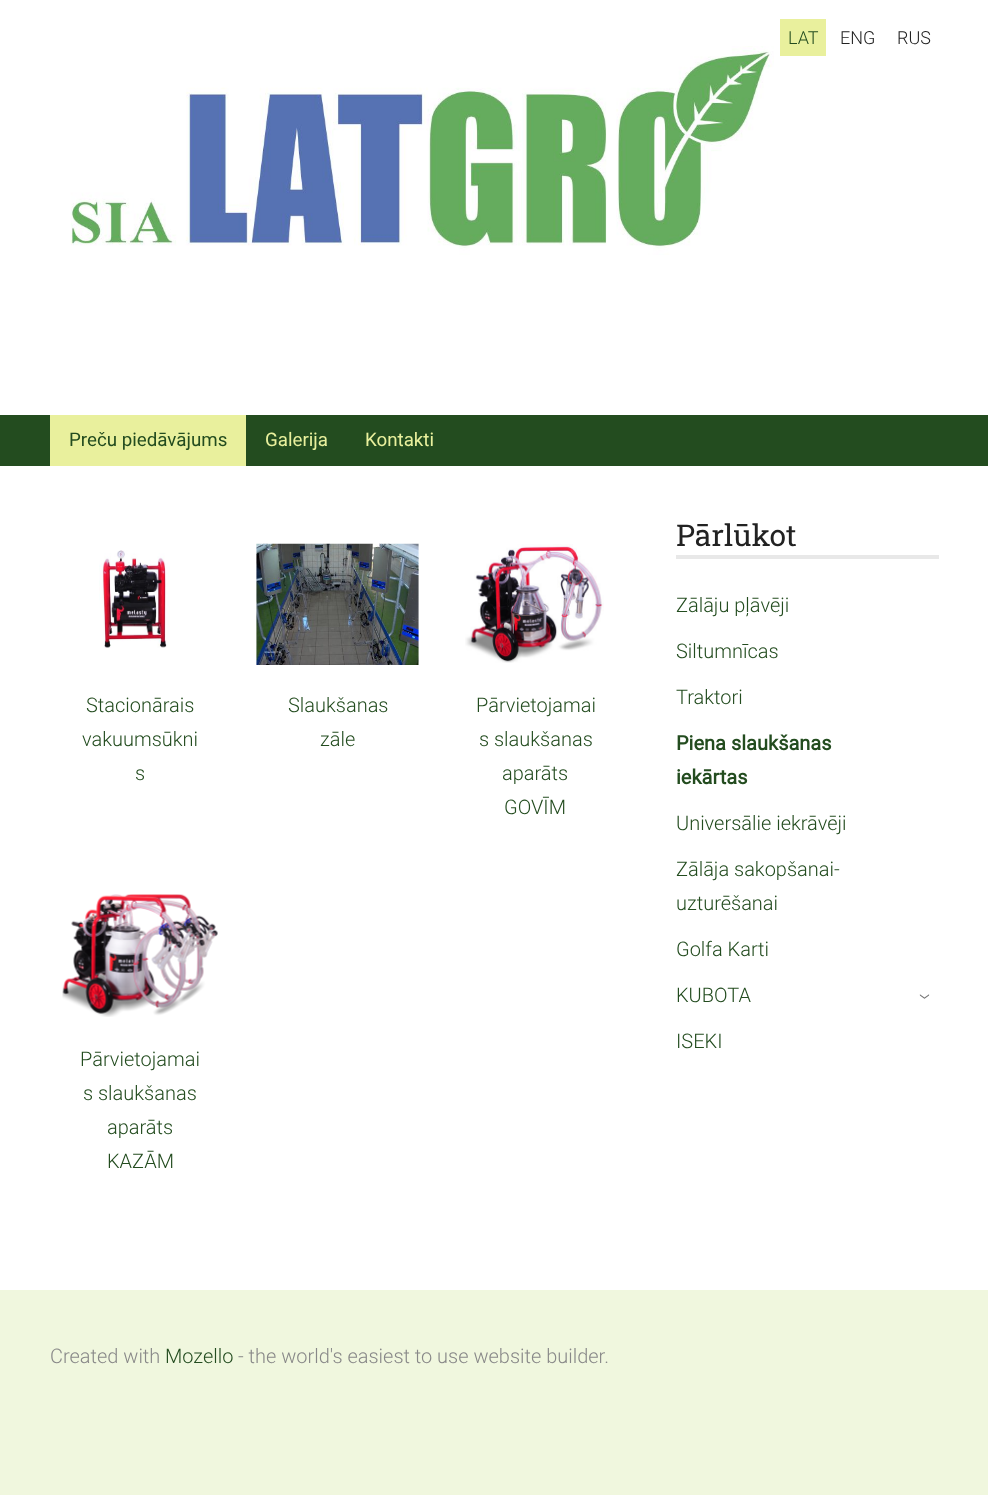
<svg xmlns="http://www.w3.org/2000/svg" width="988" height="1495">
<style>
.a{font:300 18px Roboto;fill:#234c1f}
.b{font:300 18px Roboto;fill:#222}
.c{font:18.75px Roboto;fill:#234c1f}
.d{font:18.75px Roboto;fill:#e9f09d}
.e{font:300 20px Roboto;fill:#234c1f}
.f{font:30px Roboto Slab;fill:#222}
.g{font:bold 20px Roboto;fill:#234c1f}
.h{font:300 24px Roboto;fill:#777}
.i{font:300 20px Roboto;fill:#888}
</style>
<rect width="100%" height="100%" fill="#f0f7de"/>
<path fill="#fff" d="M0 0h988v1290H0z"/>
<path fill="#e9f09d" d="M780 19h46v37H780z"/>
<image href="1.png" x="70" y="46" width="704" height="209"/>
<path fill="#234c1f" d="M0 415h988v51H0z"/>
<path fill="#e9f09d" d="M50 415h196v51H50z"/>
<image href="2.png" x="99" y="550" width="71" height="98"/>
<image href="3.png" x="256" y="543" width="163" height="122"/>
<image href="4.png" x="465" y="544" width="139" height="119"/>
<image href="5.png" x="62" y="894" width="156" height="123"/>
<path fill="#e8e8e8" d="M676 555h263v4H676z"/>
<text class="a" x="788" y="44">LAT</text>
<text class="b" x="840" y="44">ENG</text>
<text class="b" x="897" y="44">RUS</text>
<text class="c" x="69" y="446">Preču piedāvājums</text>
<text class="d" x="265" y="446">Galerija</text>
<text class="d" x="365" y="446">Kontakti</text>
<text class="e" x="86" y="712">Stacionārais</text>
<text class="e" x="82" y="746">vakuumsūkni</text>
<text class="e" x="135" y="780">s</text>
<text class="e" x="288" y="712">Slaukšanas</text>
<text class="e" x="320" y="746">zāle</text>
<text class="e" x="476" y="712">Pārvietojamai</text>
<text class="e" x="479" y="746">s slaukšanas</text>
<text class="e" x="502" y="780">aparāts</text>
<text class="e" x="504" y="814">GOVĪM</text>
<text class="e" x="80" y="1066">Pārvietojamai</text>
<text class="e" x="83" y="1100">s slaukšanas</text>
<text class="e" x="107" y="1134">aparāts</text>
<text class="e" x="107" y="1168">KAZĀM</text>
<text class="f" x="676" y="546">Pārlūkot</text>
<text class="e" x="676" y="612">Zālāju pļāvēji</text>
<text class="e" x="676" y="658">Siltumnīcas</text>
<text class="e" x="676" y="704">Traktori</text>
<text class="g" x="676" y="750">Piena slaukšanas</text>
<text class="g" x="676" y="784">iekārtas</text>
<text class="e" x="676" y="830">Universālie iekrāvēji</text>
<text class="e" x="676" y="876">Zālāja sakopšanai-</text>
<text class="e" x="676" y="910">uzturēšanai</text>
<text class="e" x="676" y="956">Golfa Karti</text>
<text class="e" x="676" y="1002">KUBOTA</text>
<text class="h" x="918" y="993" transform="rotate(90 918 993)">›</text>
<text class="e" x="676" y="1048">ISEKI</text>
<text class="i" x="50" y="1363">Created with</text>
<text class="e" x="165" y="1363">Mozello</text>
<text class="i" x="238" y="1363">- the world's easiest to use website builder.</text>
</svg>
